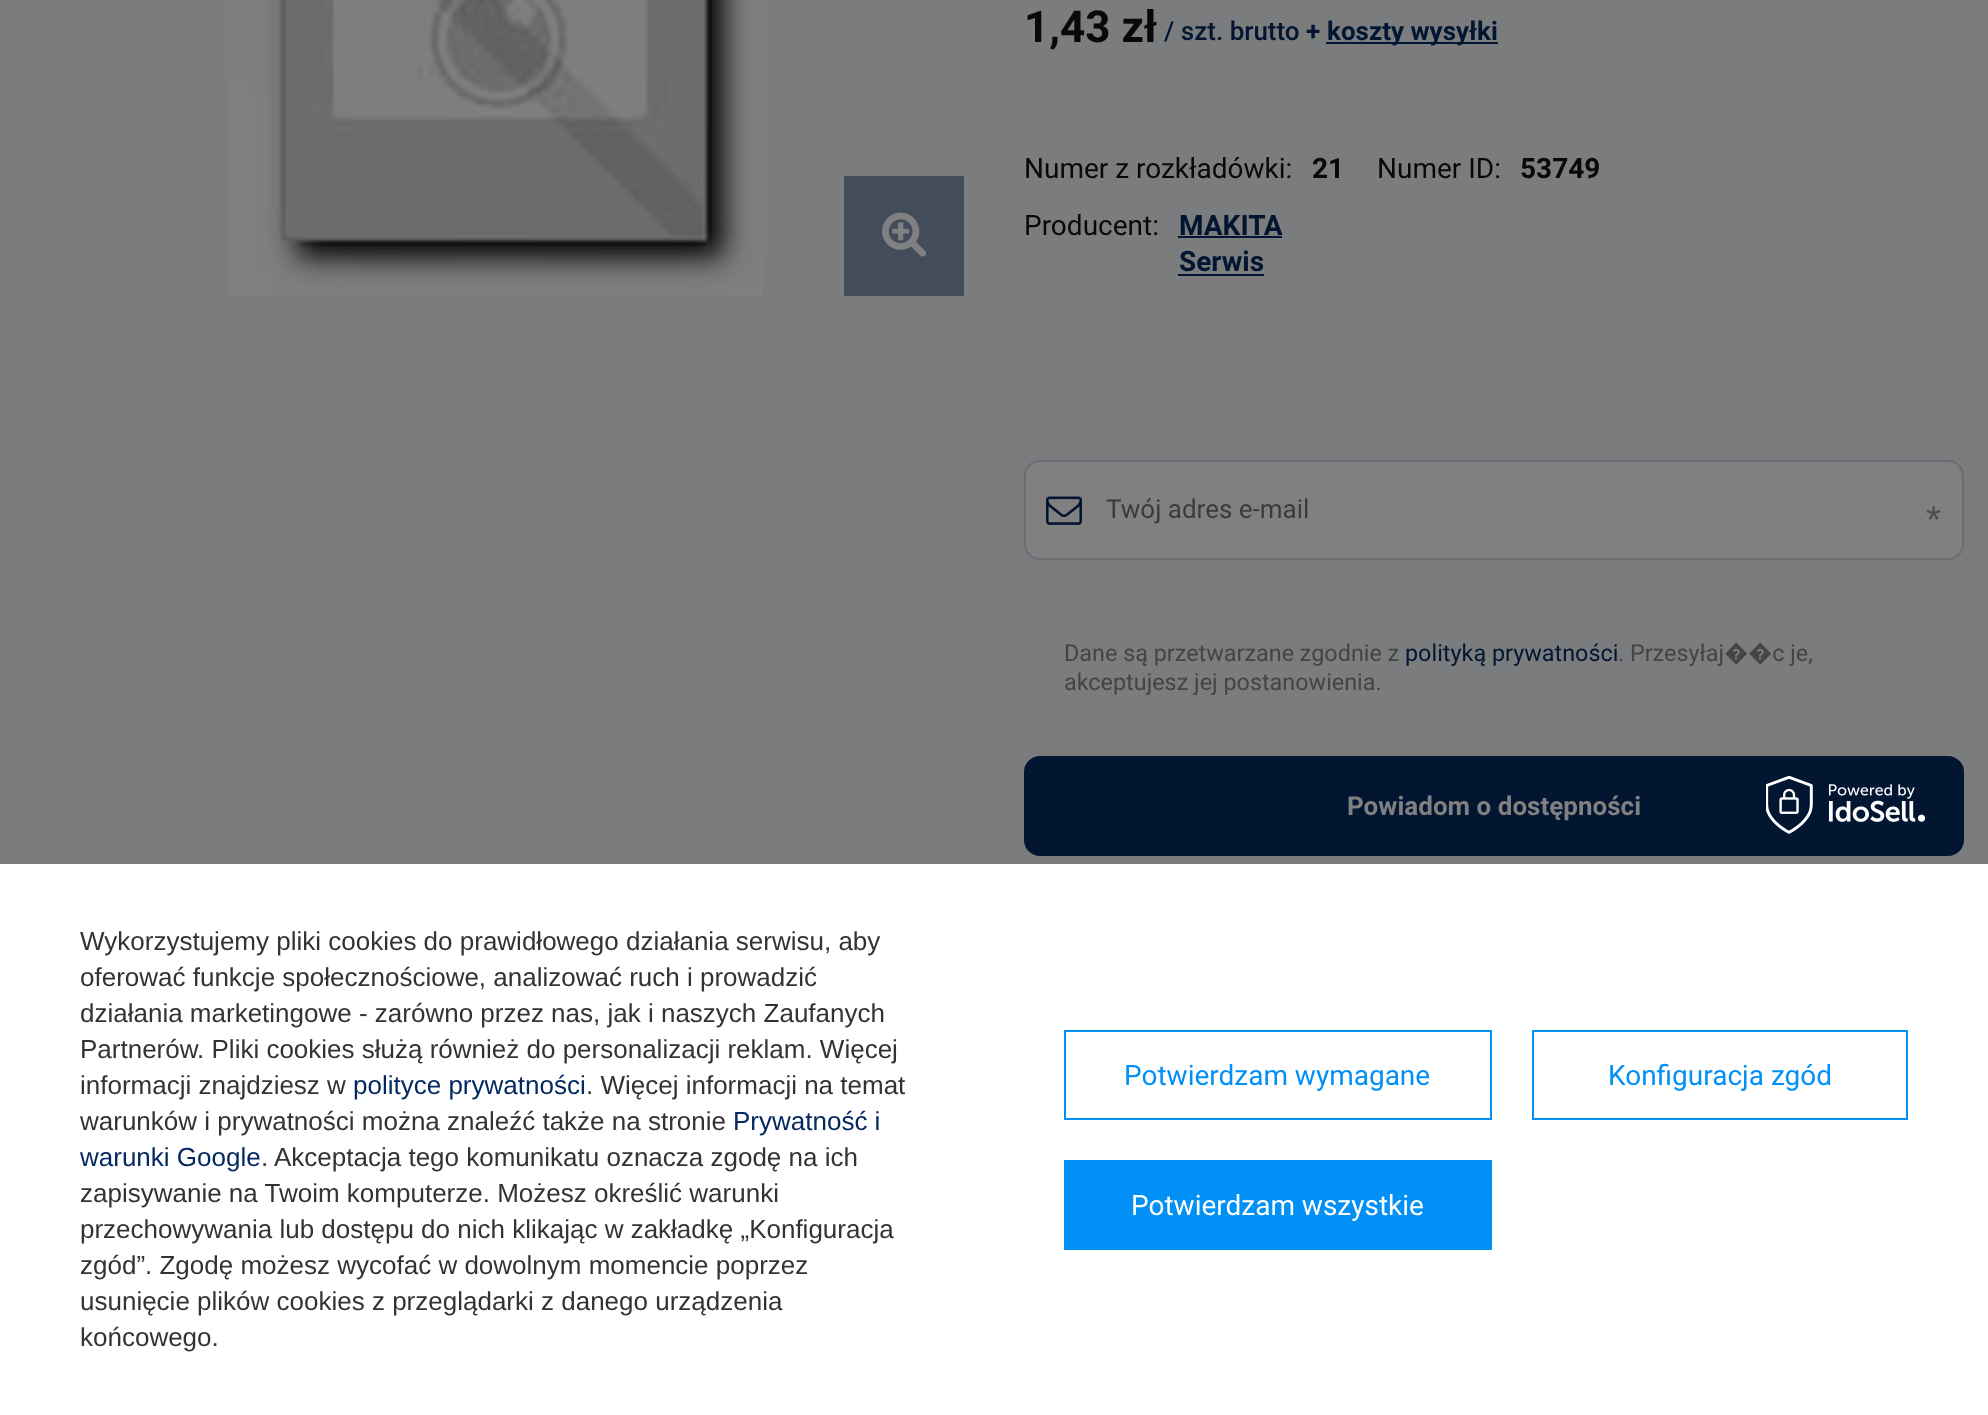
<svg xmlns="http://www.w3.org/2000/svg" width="1988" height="1415">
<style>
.a{font:bold 44px Roboto;fill:#07090b}
.b{font:500 26px Roboto;fill:#021531}
.c{font:bold 26px Roboto;fill:#021531}
.d{font:28px Roboto;fill:#07090b}
.e{font:bold 28px Roboto;fill:#07090b}
.f{font:bold 28px Roboto;fill:#021531}
.g{font:26px Roboto;fill:#3b3b3b}
.h{font:39px Liberation Sans;fill:#4d4d4d}
.i{font:23.4px Roboto;fill:#444}
.j{font:23.4px Roboto;fill:#021531}
.k{font:bold 26px Roboto;fill:#808080}
.l{font:26px Liberation Sans;fill:#333}
.m{font:26px Liberation Sans;fill:#042961}
.n{font:28px Roboto;fill:#0090f6}
.o{font:28px Roboto;fill:#fff}
</style>
<rect width="100%" height="100%" fill="#7a7c7e"/>
<image href="1.png" x="226" y="0" width="536" height="296"/>
<path fill="#434c5a" d="M844 176h120v120H844z"/>
<image href="2.png" x="882" y="212" width="44" height="45"/>
<path fill="#021531" d="M1326 42h172v2H1326z"/>
<path fill="#021531" d="M1178 236h104v2H1178z"/>
<path fill="#021531" d="M1178 274h86v2H1178z"/>
<rect fill="#808080" stroke="#6a6e74" stroke-width="2" x="1025" y="461" width="938" height="98" rx="15"/>
<image href="3.png" x="1046" y="496" width="36" height="29"/>
<rect fill="#021531" stroke="#021531" stroke-width="2" x="1025" y="757" width="938" height="98" rx="15"/>
<path fill="#fff" d="M0 864h1988v551H0z"/>
<image href="4.png" x="1766" y="776" width="159" height="58"/>
<path fill="none" stroke="#0090f6" stroke-width="2" d="M1065 1031h426v88H1065z"/>
<path fill="none" stroke="#0090f6" stroke-width="2" d="M1533 1031h374v88H1533z"/>
<path fill="#0090f6" d="M1064 1160h428v90H1064z"/>
<text class="a" x="1024" y="42">1,43 zł</text>
<text class="b" x="1164" y="40">/ szt. brutto</text>
<text class="c" x="1306" y="40">+</text>
<text class="c" x="1327" y="40">koszty wysyłki</text>
<text class="d" x="1024" y="178">Numer z rozkładówki:</text>
<text class="e" x="1312" y="178">21</text>
<text class="d" x="1377" y="178">Numer ID:</text>
<text class="e" x="1520" y="178">53749</text>
<text class="d" x="1024" y="235">Producent:</text>
<text class="f" x="1179" y="235">MAKITA</text>
<text class="f" x="1179" y="271">Serwis</text>
<text class="g" x="1106" y="518">Twój adres e-mail</text>
<text class="h" x="1926" y="533">*</text>
<text class="i" x="1064" y="661">Dane są przetwarzane zgodnie z</text>
<text class="j" x="1405" y="661">polityką prywatności</text>
<text class="i" x="1618" y="661">. Przesyłaj��c je,</text>
<text class="i" x="1064" y="690">akceptujesz jej postanowienia.</text>
<text class="k" x="1347" y="815">Powiadom o dostępności</text>
<text class="l" x="80" y="950">Wykorzystujemy pliki cookies do prawidłowego działania serwisu, aby</text>
<text class="l" x="80" y="986">oferować funkcje społecznościowe, analizować ruch i prowadzić</text>
<text class="l" x="80" y="1022">działania marketingowe - zarówno przez nas, jak i naszych Zaufanych</text>
<text class="l" x="80" y="1058">Partnerów. Pliki cookies służą również do personalizacji reklam. Więcej</text>
<text class="l" x="80" y="1094">informacji znajdziesz w</text>
<text class="m" x="353" y="1094">polityce prywatności</text>
<text class="l" x="586" y="1094">. Więcej informacji na temat</text>
<text class="l" x="80" y="1130">warunków i prywatności można znaleźć także na stronie</text>
<text class="m" x="733" y="1130">Prywatność i</text>
<text class="m" x="80" y="1166">warunki Google</text>
<text class="l" x="261" y="1166">. Akceptacja tego komunikatu oznacza zgodę na ich</text>
<text class="l" x="80" y="1202">zapisywanie na Twoim komputerze. Możesz określić warunki</text>
<text class="l" x="80" y="1238">przechowywania lub dostępu do nich klikając w zakładkę „Konfiguracja</text>
<text class="l" x="80" y="1274">zgód”. Zgodę możesz wycofać w dowolnym momencie poprzez</text>
<text class="l" x="80" y="1310">usunięcie plików cookies z przeglądarki z danego urządzenia</text>
<text class="l" x="80" y="1346">końcowego.</text>
<text class="n" x="1124" y="1085">Potwierdzam wymagane</text>
<text class="n" x="1608" y="1085">Konfiguracja zgód</text>
<text class="o" x="1131" y="1215">Potwierdzam wszystkie</text>
</svg>
